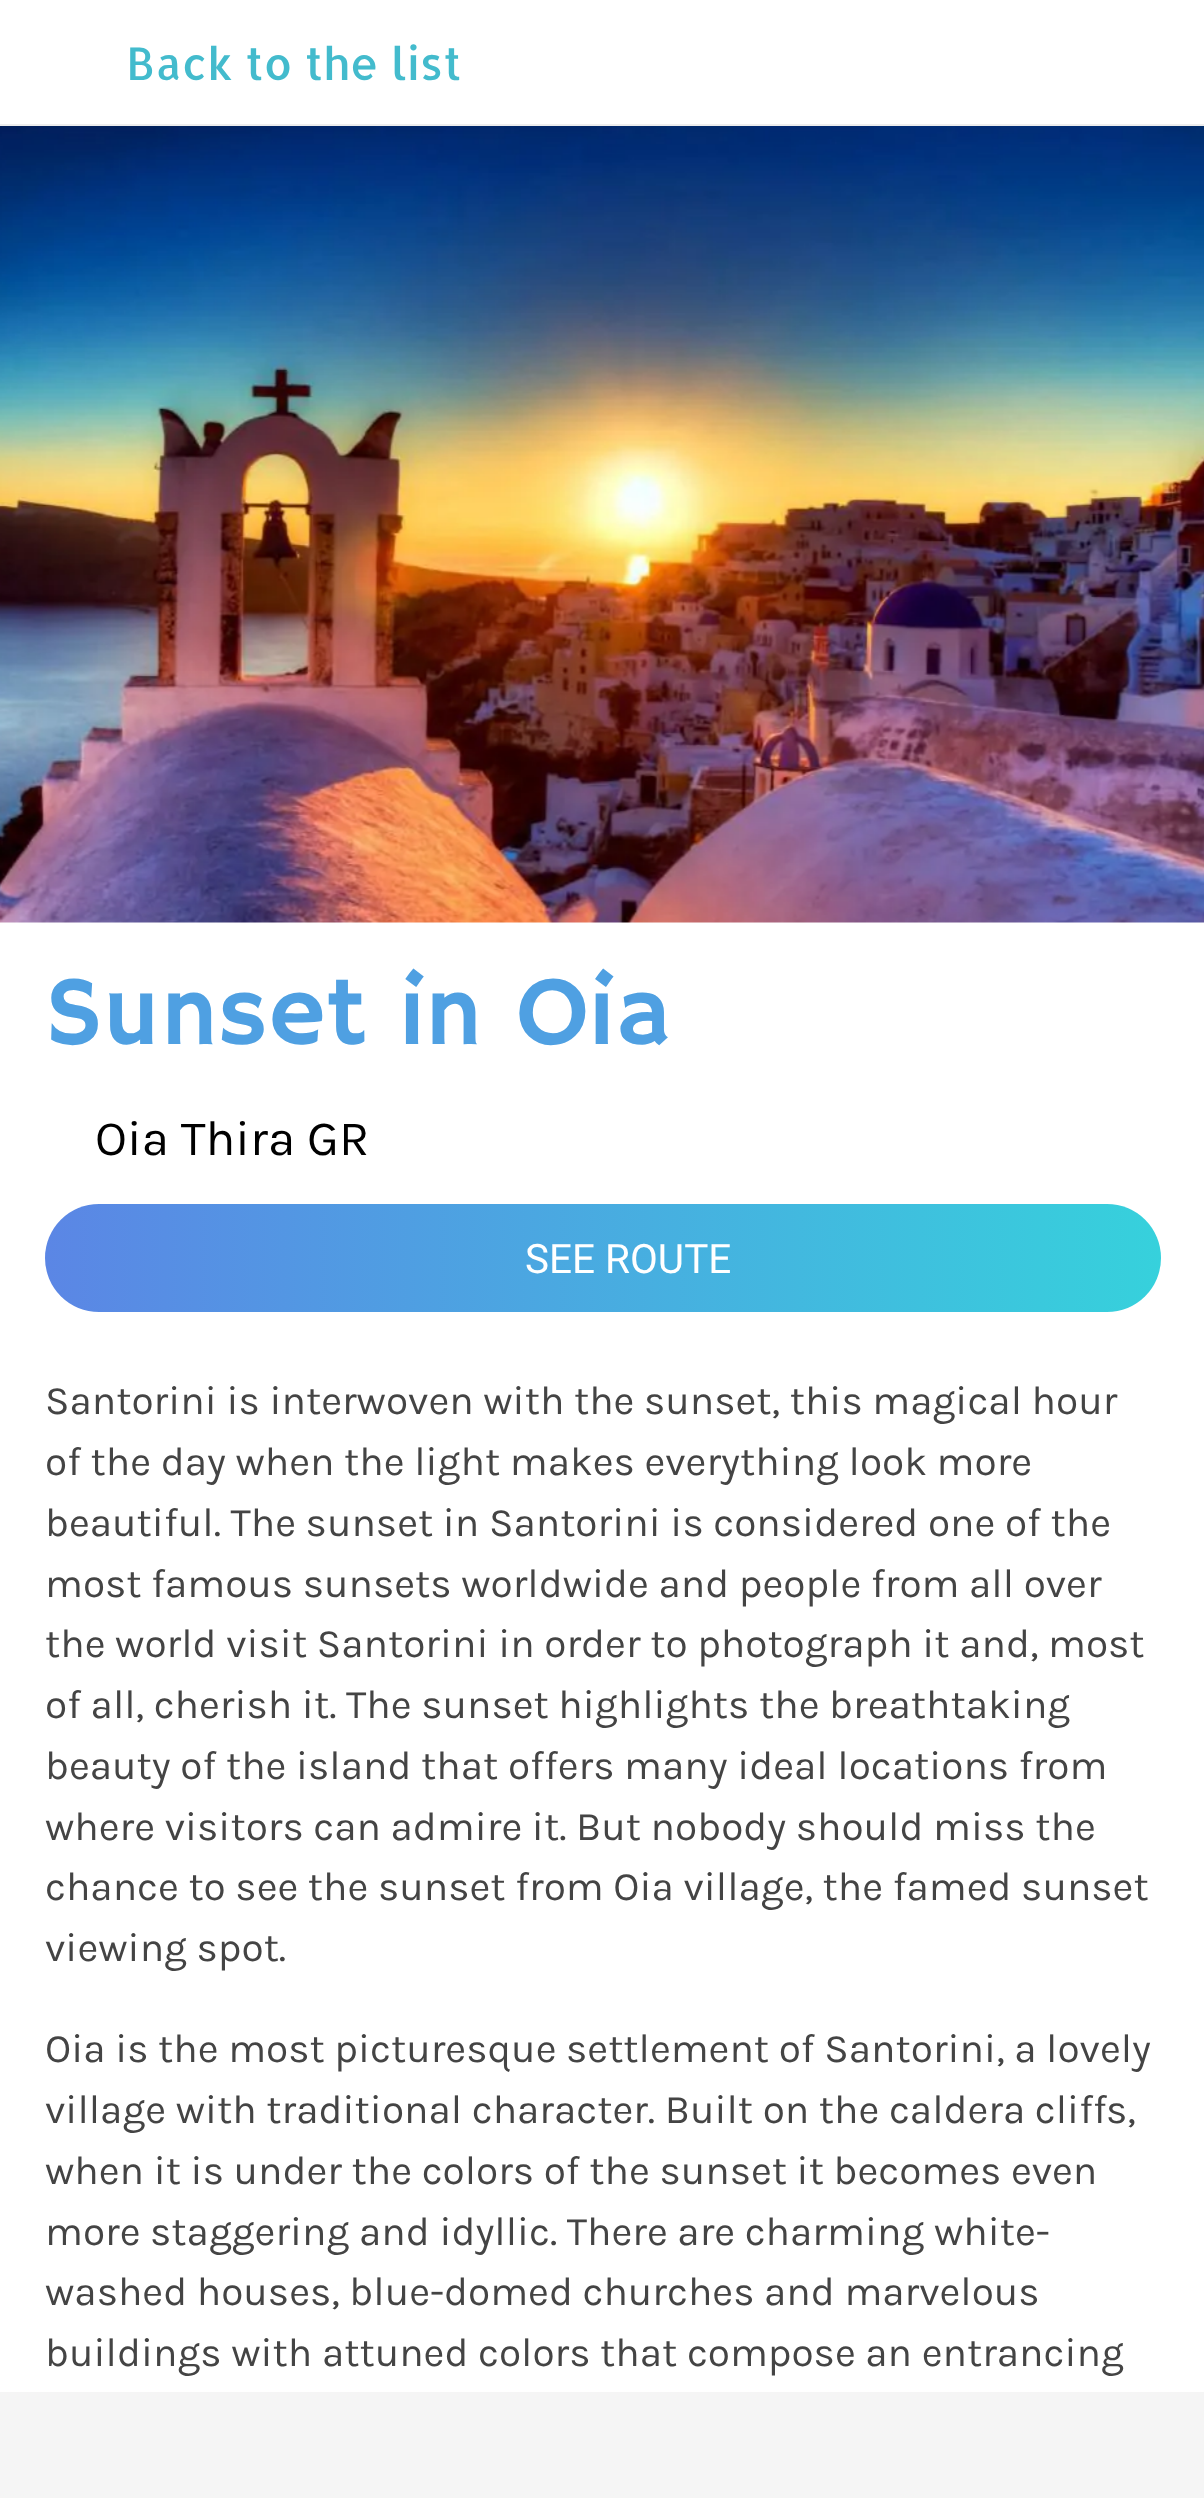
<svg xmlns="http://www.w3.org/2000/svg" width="1204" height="2498">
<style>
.a{font:45px Allerta;fill:#43bbcd}
.b{font:99px Hammersmith One;fill:#4fa0e2}
.c{font:49.5px Karla;fill:#000}
.d{font:40.5px Roboto;fill:#fff}
.e{font:40.5px Karla;fill:#444}
</style>
<defs>
<linearGradient id="g1" gradientUnits="userSpaceOnUse" x1="1161" y1="1258" x2="45" y2="1258"><stop offset="0" stop-color="#36d1dc"/><stop offset="1" stop-color="#5b86e5"/></linearGradient>
</defs>
<rect width="100%" height="100%" fill="#fff"/>
<path fill="#ededed" d="M0 124h1204v2H0z"/>
<image href="1.png" x="0" y="126" width="1204" height="797"/>
<rect fill="url(#g1)" x="45" y="1204" width="1116" height="108" rx="54"/>
<path fill="#f5f5f5" d="M0 2392h1204v106H0z"/>
<text class="a" x="126" y="80">Back to the list</text>
<text class="b" x="45" y="1044">Sunset in Oia</text>
<text class="c" x="95" y="1155">Oia Thira GR</text>
<text class="d" x="525" y="1273">SEE ROUTE</text>
<text class="e" x="45" y="1414">Santorini is interwoven with the sunset, this magical hour</text>
<text class="e" x="45" y="1475">of the day when the light makes everything look more</text>
<text class="e" x="45" y="1536">beautiful. The sunset in Santorini is considered one of the</text>
<text class="e" x="45" y="1597">most famous sunsets worldwide and people from all over</text>
<text class="e" x="45" y="1657">the world visit Santorini in order to photograph it and, most</text>
<text class="e" x="45" y="1718">of all, cherish it. The sunset highlights the breathtaking</text>
<text class="e" x="45" y="1779">beauty of the island that offers many ideal locations from</text>
<text class="e" x="45" y="1840">where visitors can admire it. But nobody should miss the</text>
<text class="e" x="45" y="1900">chance to see the sunset from Oia village, the famed sunset</text>
<text class="e" x="45" y="1961">viewing spot.</text>
<text class="e" x="45" y="2062">Oia is the most picturesque settlement of Santorini, a lovely</text>
<text class="e" x="45" y="2123">village with traditional character. Built on the caldera cliffs,</text>
<text class="e" x="45" y="2184">when it is under the colors of the sunset it becomes even</text>
<text class="e" x="45" y="2245">more staggering and idyllic. There are charming white-</text>
<text class="e" x="45" y="2305">washed houses, blue-domed churches and marvelous</text>
<text class="e" x="45" y="2366">buildings with attuned colors that compose an entrancing</text>
</svg>
